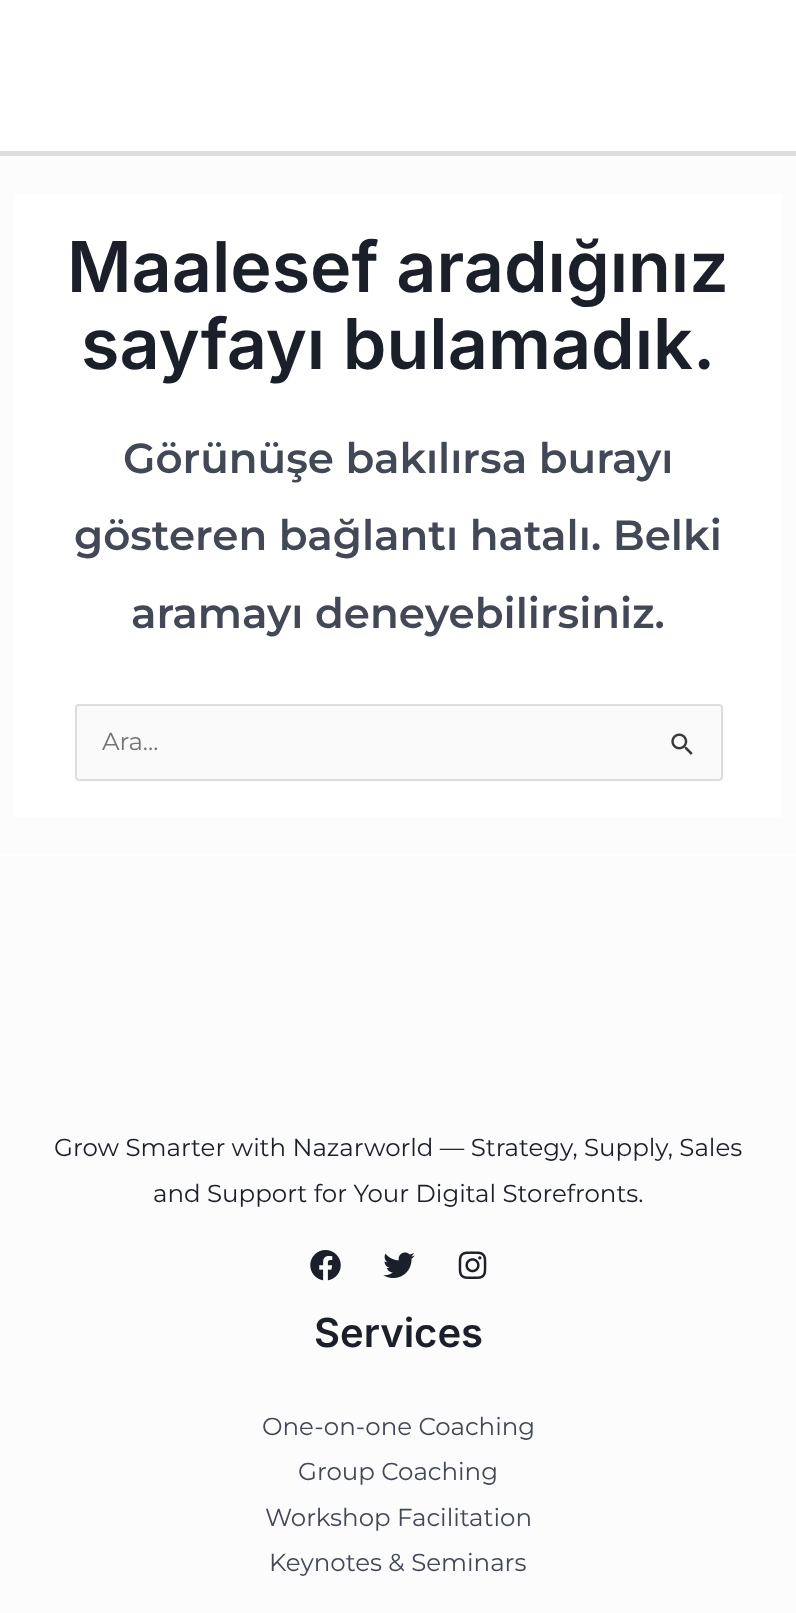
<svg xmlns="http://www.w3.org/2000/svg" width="796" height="1613">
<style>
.a{font:600 70px Inter;fill:#1b1f29}
.b{font:600 42px Montserrat;fill:#434856}
.c{font:24.5px Montserrat;fill:#757575}
.d{font:24.5px Montserrat;fill:#1b1f29}
.e{font:600 40px Inter;fill:#1b1f29}
.f{font:24.5px Montserrat;fill:#434856}
</style>
<rect width="100%" height="100%" fill="#fcfcfc"/>
<path fill="#fff" d="M0 0h796v151H0z"/>
<path fill="#ddd" d="M0 151h796v5H0z"/>
<path fill="#fff" d="M14 193h768v624H14z"/>
<rect fill="#fafafa" stroke="#ddd" stroke-width="2" x="76" y="705" width="646" height="75" rx="3"/>
<image href="1.png" x="671" y="733" width="22" height="22"/>
<path fill="#fff" d="M0 854h796v2H0z"/>
<image href="2.png" x="310" y="1250" width="31" height="31"/>
<image href="3.png" x="383" y="1252" width="32" height="26"/>
<image href="4.png" x="458" y="1251" width="29" height="28"/>
<text class="a" x="67" y="292">Maalesef aradığınız</text>
<text class="a" x="81" y="369">sayfayı bulamadık.</text>
<text class="b" x="123" y="473">Görünüşe bakılırsa burayı</text>
<text class="b" x="74" y="550">gösteren bağlantı hatalı. Belki</text>
<text class="b" x="131" y="628">aramayı deneyebilirsiniz.</text>
<text class="c" x="102" y="750">Ara...</text>
<text class="d" x="54" y="1156">Grow Smarter with Nazarworld — Strategy, Supply, Sales</text>
<text class="d" x="153" y="1202">and Support for Your Digital Storefronts.</text>
<text class="e" x="314" y="1347">Services</text>
<text class="f" x="262" y="1435">One-on-one Coaching</text>
<text class="f" x="298" y="1480">Group Coaching</text>
<text class="f" x="265" y="1526">Workshop Facilitation</text>
<text class="f" x="269" y="1571">Keynotes &amp; Seminars</text>
</svg>
